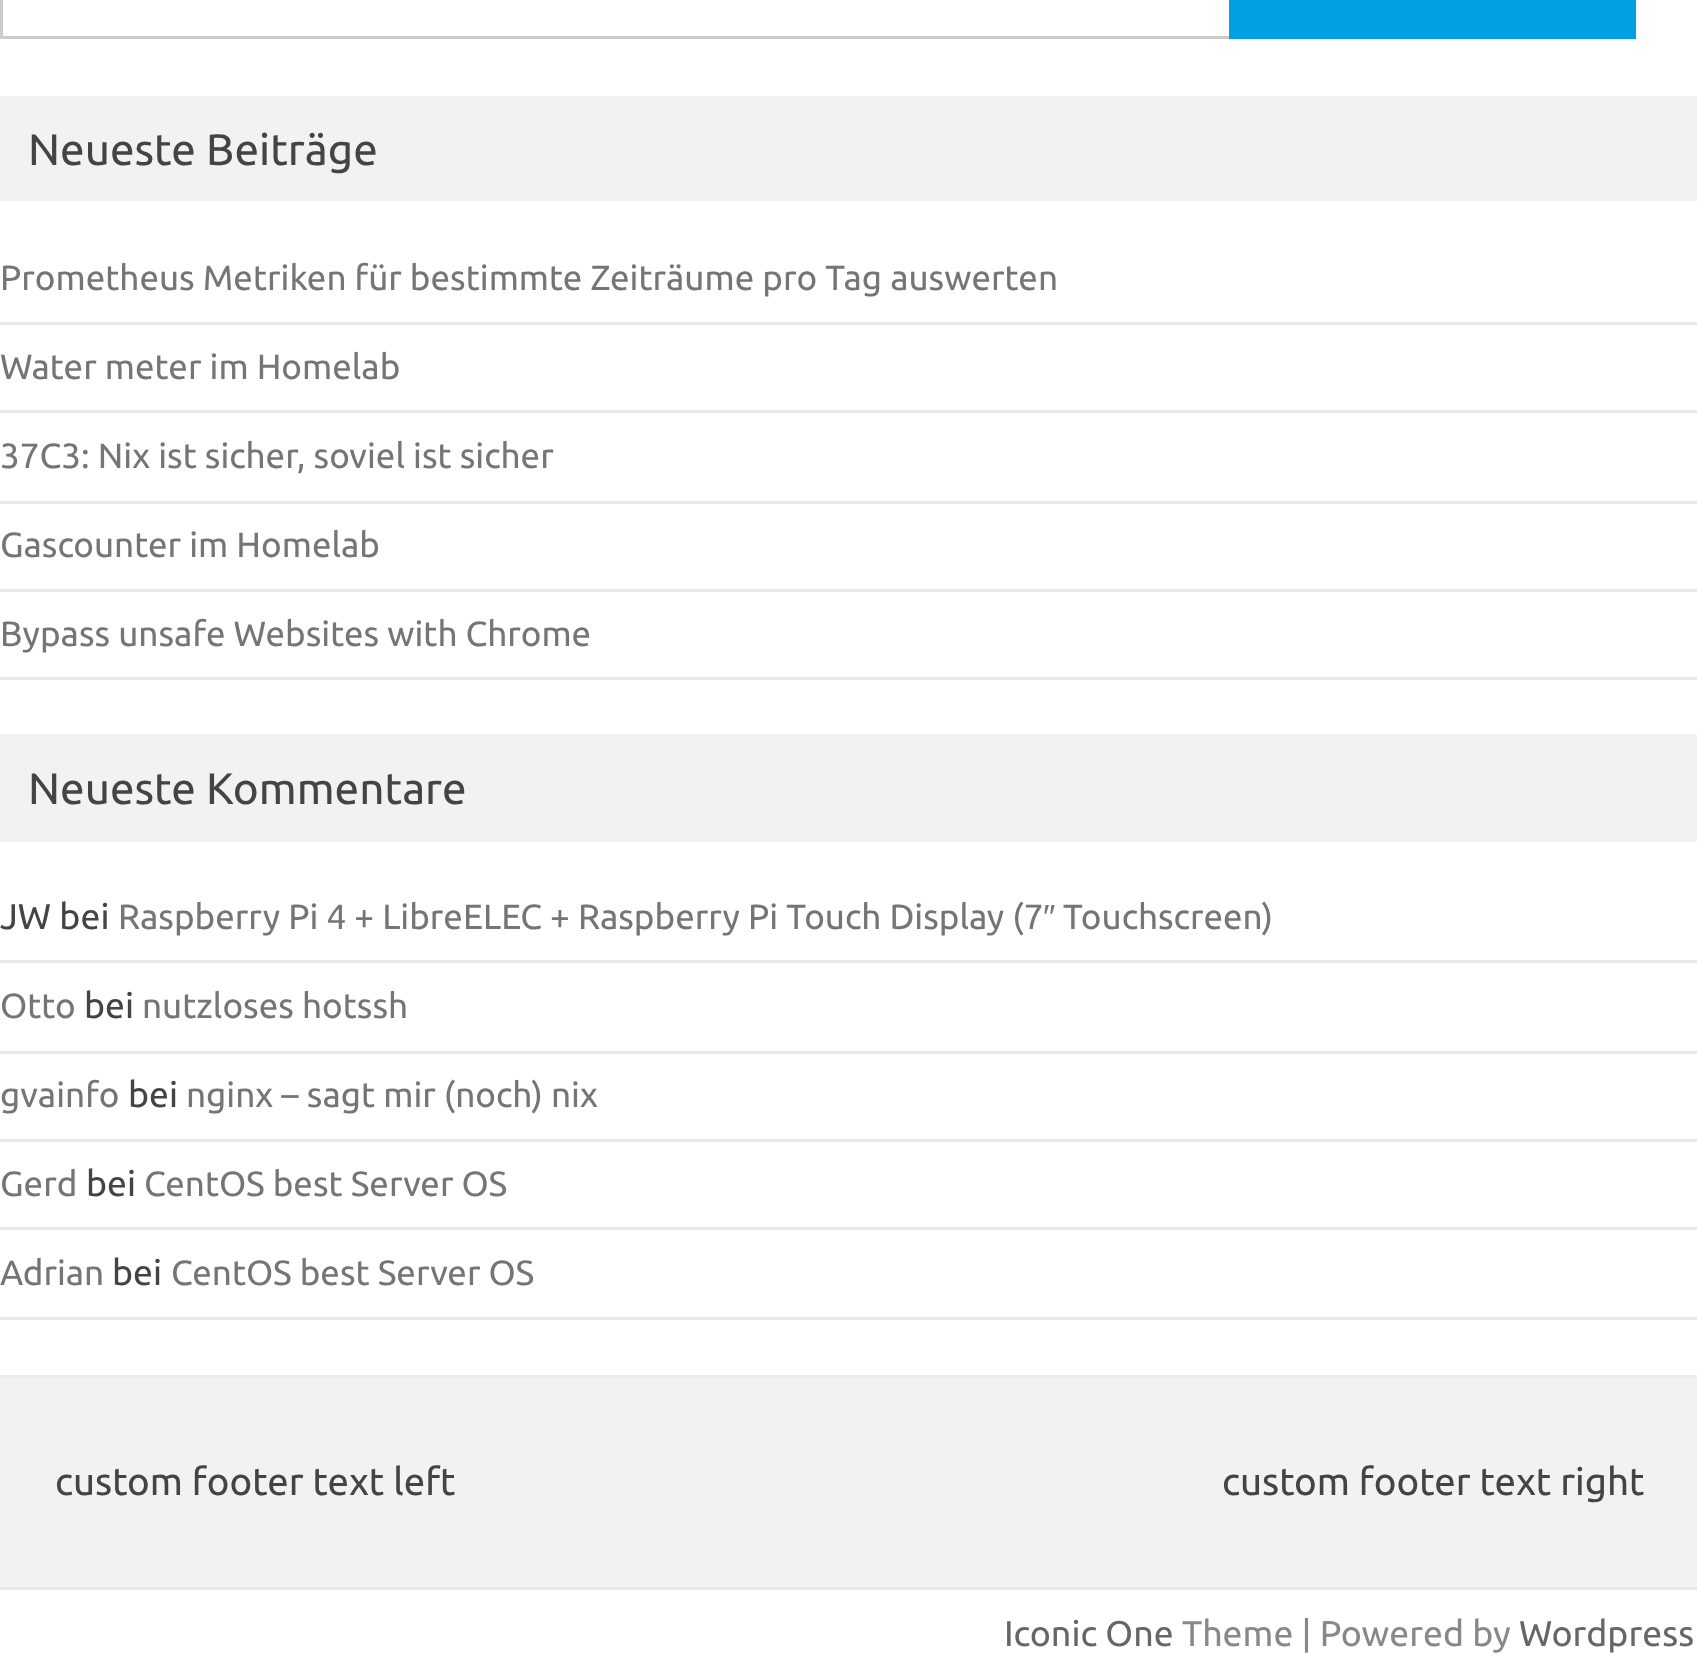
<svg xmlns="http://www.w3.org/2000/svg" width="1697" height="1680">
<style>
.a{font:44px Ubuntu;fill:#444}
.b{font:35.05px Ubuntu;fill:#757575}
.c{font:35.75px Ubuntu;fill:#444}
.d{font:35.05px Liberation Sans;fill:#757575}
.e{font:38.5px Ubuntu;fill:#444}
.f{font:35.75px Ubuntu;fill:#666}
.g{font:35.75px Ubuntu;fill:#888}
</style>
<rect width="100%" height="100%" fill="#fff"/>
<path fill="none" stroke="#ccc" stroke-width="3" d="M1.5 -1.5h1229v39H1.5z"/>
<path fill="#00a1e0" d="M1229 0h407v39H1229z"/>
<path fill="#f2f2f2" d="M0 96h1697v105H0z"/>
<path fill="#e9e9e9" d="M0 322h1697v3H0z"/>
<path fill="#e9e9e9" d="M0 410h1697v3H0z"/>
<path fill="#e9e9e9" d="M0 501h1697v3H0z"/>
<path fill="#e9e9e9" d="M0 589h1697v3H0z"/>
<path fill="#e9e9e9" d="M0 677h1697v3H0z"/>
<path fill="#f2f2f2" d="M0 734h1697v108H0z"/>
<path fill="#e9e9e9" d="M0 960h1697v3H0z"/>
<path fill="#e9e9e9" d="M0 1051h1697v3H0z"/>
<path fill="#e9e9e9" d="M0 1139h1697v3H0z"/>
<path fill="#e9e9e9" d="M0 1227h1697v3H0z"/>
<path fill="#e9e9e9" d="M0 1317h1697v3H0z"/>
<path fill="#f2f2f2" d="M0 1378h1697v209H0z"/>
<path fill="#ededed" d="M0 1375h1697v3H0z"/>
<path fill="#e9e9e9" d="M0 1587h1697v3H0z"/>
<text class="a" x="28" y="165">Neueste Beiträge</text>
<text class="b" x="0" y="290">Prometheus Metriken für bestimmte Zeiträume pro Tag auswerten</text>
<text class="b" x="0" y="379">Water meter im Homelab</text>
<text class="b" x="0" y="468">37C3: Nix ist sicher, soviel ist sicher</text>
<text class="b" x="0" y="557">Gascounter im Homelab</text>
<text class="b" x="0" y="646">Bypass unsafe Websites with Chrome</text>
<text class="a" x="28" y="804">Neueste Kommentare</text>
<text class="c" x="0" y="929">JW bei</text>
<text class="b" x="118" y="929">Raspberry Pi 4 + LibreELEC + Raspberry Pi Touch Display (7</text>
<text class="d" x="1043" y="929">″</text>
<text class="b" x="1063" y="929">Touchscreen)</text>
<text class="b" x="0" y="1018">Otto</text>
<text class="c" x="84" y="1018">bei</text>
<text class="b" x="142" y="1018">nutzloses hotssh</text>
<text class="b" x="0" y="1107">gvainfo</text>
<text class="c" x="128" y="1107">bei</text>
<text class="b" x="186" y="1107">nginx – sagt mir (noch) nix</text>
<text class="b" x="0" y="1196">Gerd</text>
<text class="c" x="86" y="1196">bei</text>
<text class="b" x="144" y="1196">CentOS best Server OS</text>
<text class="b" x="0" y="1285">Adrian</text>
<text class="c" x="112" y="1285">bei</text>
<text class="b" x="171" y="1285">CentOS best Server OS</text>
<text class="e" x="55" y="1495">custom footer text left</text>
<text class="e" x="1222" y="1495">custom footer text right</text>
<text class="f" x="1004" y="1646">Iconic One</text>
<text class="g" x="1182" y="1646">Theme | Powered by</text>
<text class="f" x="1519" y="1646">Wordpress</text>
</svg>
